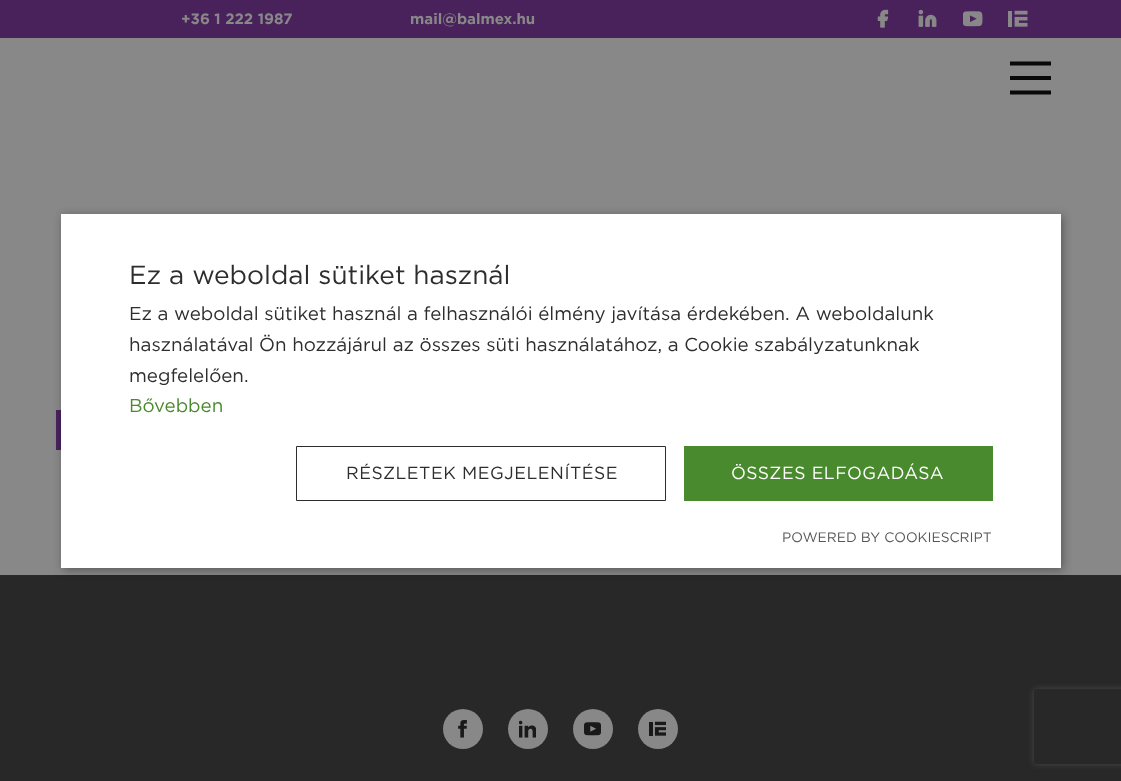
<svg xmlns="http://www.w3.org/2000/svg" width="1121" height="781">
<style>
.a{font:bold 15px Gotham;fill:#888}
.b{font:26.25px Gotham;fill:#2d2d2d}
.c{font:18.75px Gotham;fill:#2d2d2d}
.d{font:18.75px Gotham;fill:#488a2d}
.e{font:17.5px Gotham;letter-spacing:0.5px;fill:#2d2d2d}
.f{font:17.5px Gotham;letter-spacing:0.5px;fill:#fff}
.g{font:13.75px Gotham;fill:#575757}
</style>
<defs>
<clipPath id="clip1"><path d="M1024 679h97v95h-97zm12.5 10h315c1.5 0 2.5 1 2.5 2.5v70c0 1.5-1 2.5-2.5 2.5h-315c-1.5 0-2.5-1-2.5-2.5v-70c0-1.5 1-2.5 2.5-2.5z" clip-rule="evenodd"/></clipPath>
</defs>
<rect width="100%" height="100%" fill="#888"/>
<path fill="#49225c" d="M0 0h1121v38H0z"/>
<image href="1.png" x="877" y="9" width="12" height="19"/>
<image href="2.png" x="918" y="9" width="19" height="18"/>
<image href="3.png" x="963" y="11" width="20" height="16"/>
<image href="4.png" x="1008" y="10" width="20" height="17"/>
<path fill="none" stroke="#090909" stroke-width="4.1" d="M1010 63.5h41"/>
<path fill="#090909" d="M1010 76h41v4H1010z"/>
<path fill="none" stroke="#090909" stroke-width="4.1" d="M1010 92.5h41"/>
<path fill="#49225c" d="M56 410h5v40H56z"/>
<path fill="#272827" d="M0 575h1121v206H0z"/>
<circle fill="#888" cx="463" cy="729" r="20"/>
<image href="5.png" x="458" y="720" width="9" height="18"/>
<circle fill="#888" cx="528" cy="729" r="20"/>
<image href="6.png" x="519" y="720" width="17" height="18"/>
<circle fill="#888" cx="593" cy="729" r="20"/>
<image href="7.png" x="584" y="722" width="17" height="14"/>
<circle fill="#888" cx="658" cy="729" r="20"/>
<image href="8.png" x="649" y="721" width="17" height="15"/>
<path fill="#00000059" filter="blur(5px)" d="M63 216h1000v354H63z"/>
<path fill="#fff" d="M61 214h1000v354H61z"/>
<path fill="none" stroke="#2d2d2d" d="M296.5 446.5h369v54H296.5z"/>
<path fill="#488a2d" d="M684 446h309v55H684z"/>
<g clip-path="url(#clip1)">
<rect fill="#494949" filter="blur(3px)" x="1034" y="689" width="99" height="75" rx="2.5"/>
</g>
<text class="a" x="181" y="24">+36 1 222 1987</text>
<text class="a" x="410" y="24">mail@balmex.hu</text>
<text class="b" x="129" y="284">Ez a weboldal sütiket használ</text>
<text class="c" x="129" y="320">Ez a weboldal sütiket használ a felhasználói élmény javítása érdekében. A weboldalunk</text>
<text class="c" x="129" y="351">használatával Ön hozzájárul az összes süti használatához, a Cookie szabályzatunknak</text>
<text class="c" x="129" y="382">megfelelően.</text>
<text class="d" x="129" y="412">Bővebben</text>
<text class="e" x="346" y="479">RÉSZLETEK MEGJELENÍTÉSE</text>
<text class="f" x="731" y="479">ÖSSZES ELFOGADÁSA</text>
<text class="g" x="782" y="542">POWERED BY COOKIESCRIPT</text>
</svg>
